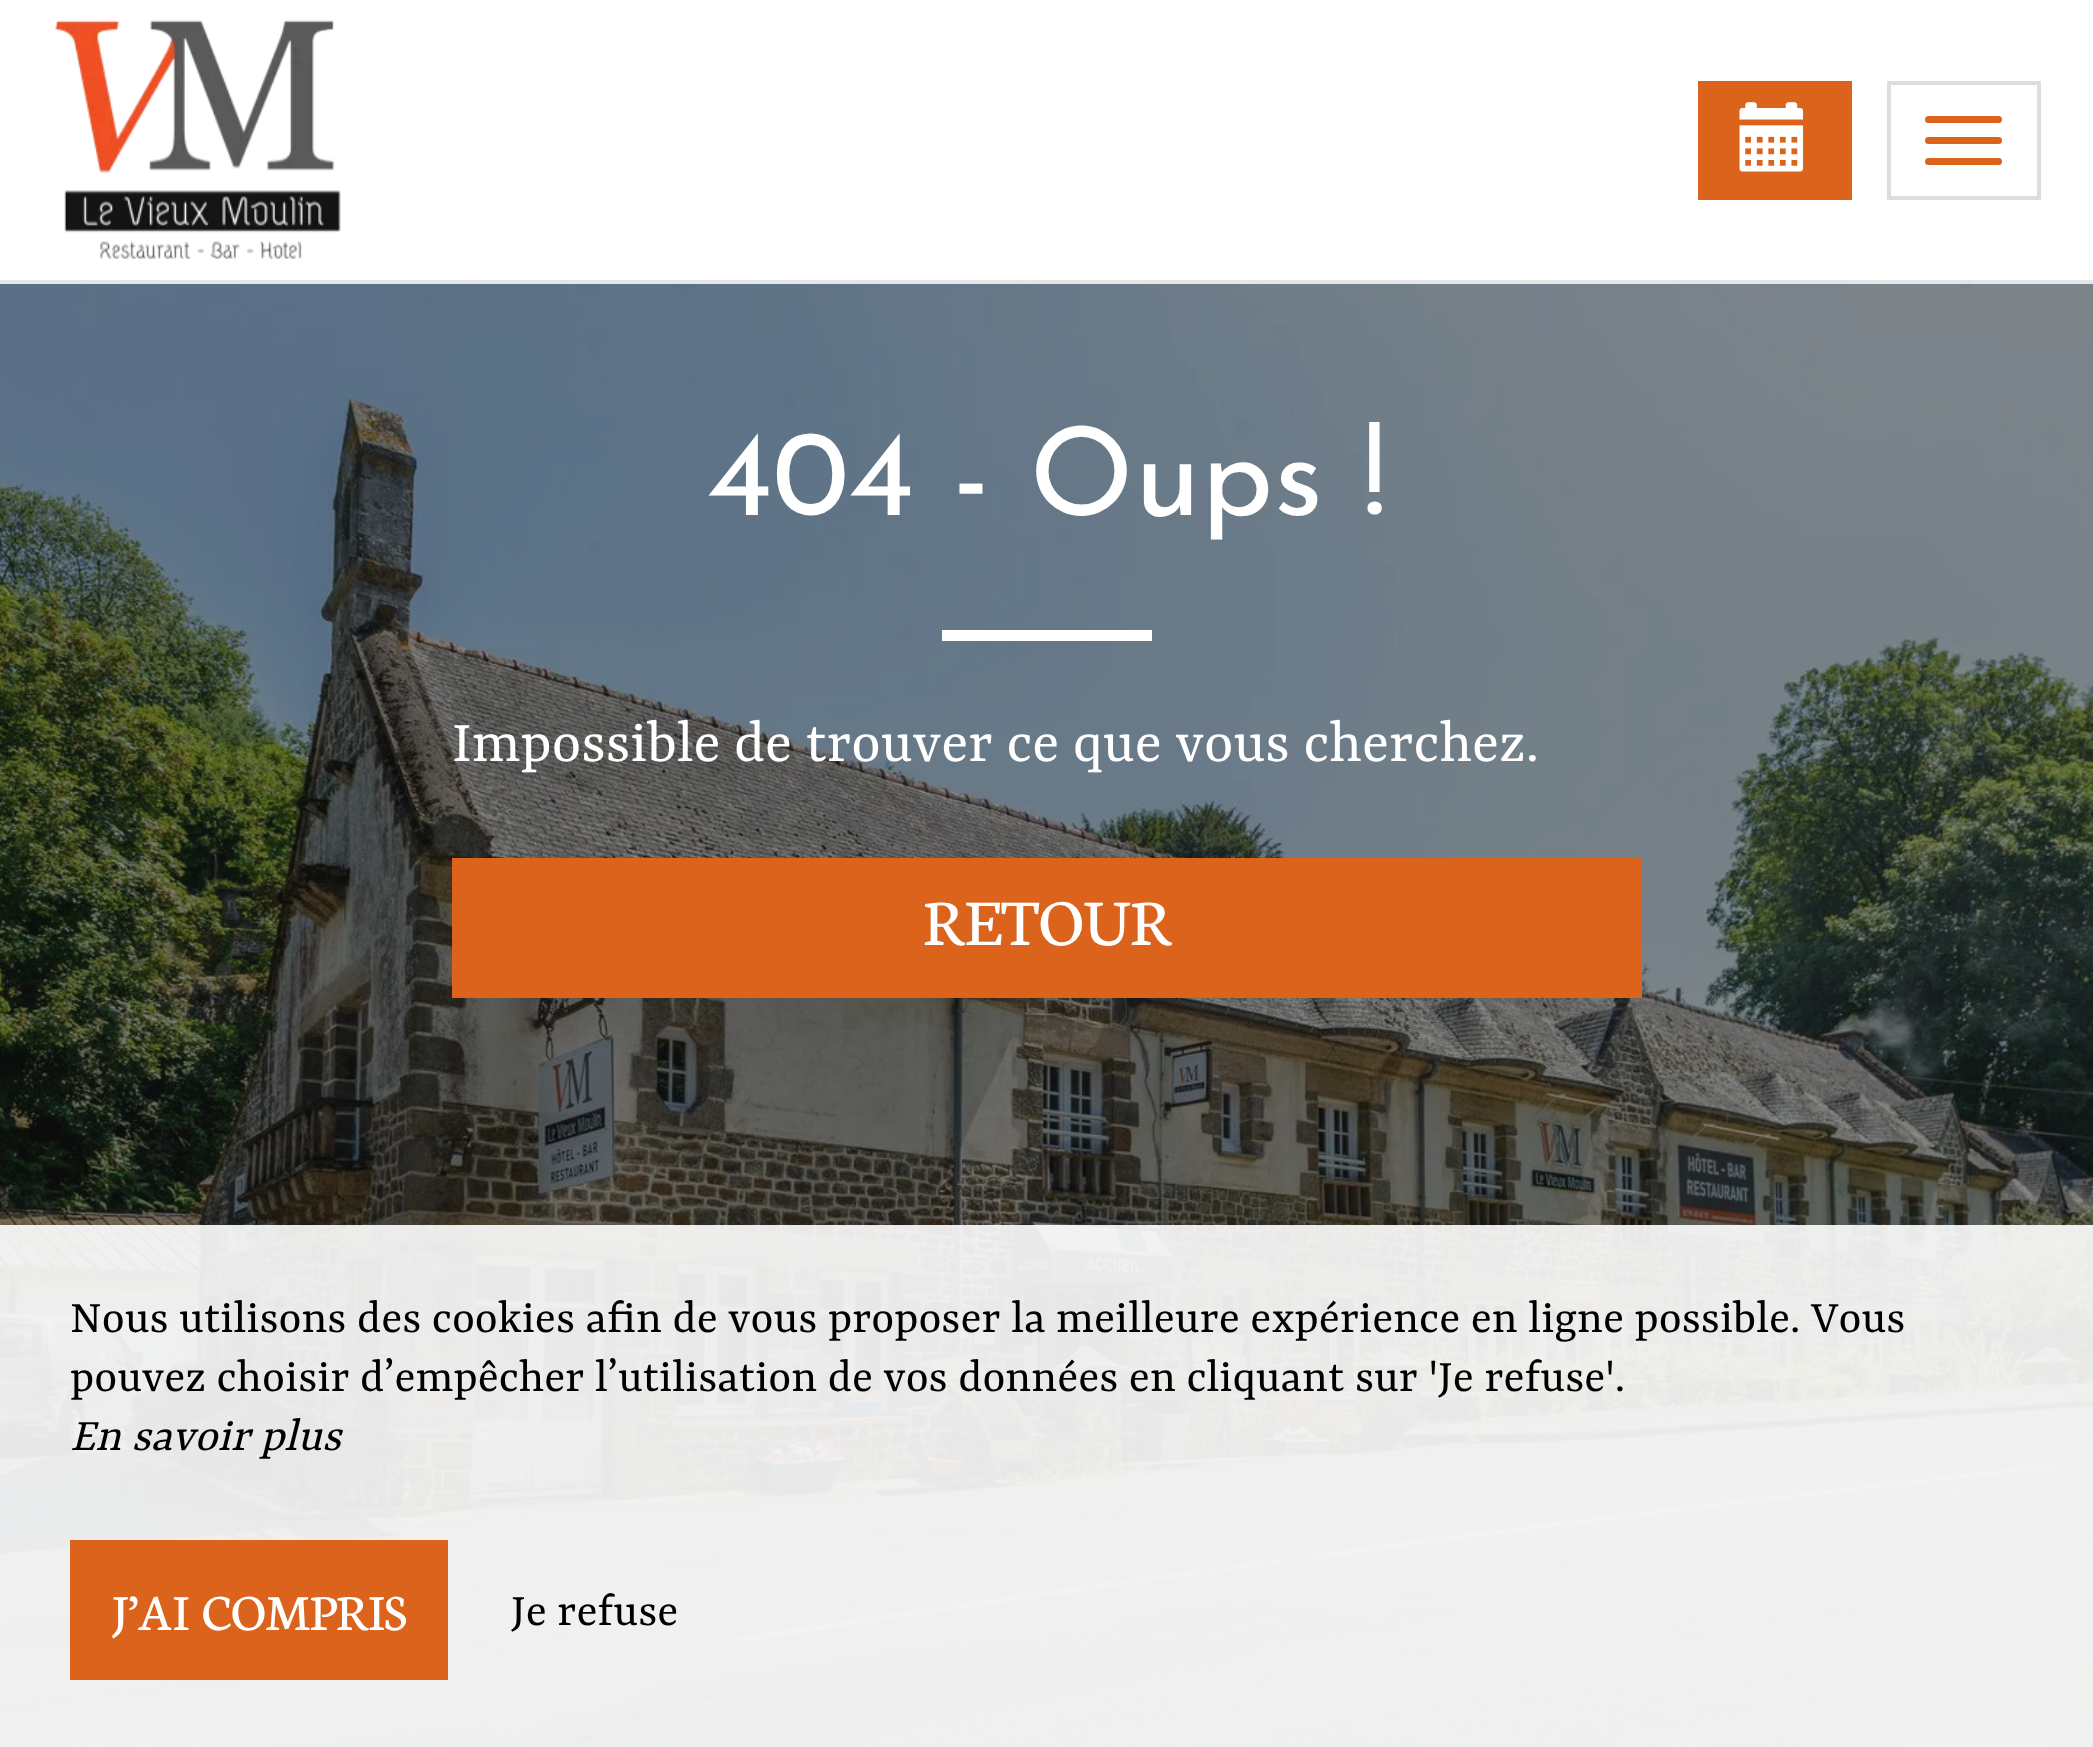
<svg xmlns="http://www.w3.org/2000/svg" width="2093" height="1747">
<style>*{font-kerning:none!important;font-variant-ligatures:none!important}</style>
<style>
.a{font:122.5px Josefin Sans;fill:#fff}
.b{font:63px Yrsa;fill:#fff}
.c{font:69.5px Neuton;fill:#fff}
.d{font:49px Yrsa;fill:#000}
.e{font:italic 49px Yrsa;fill:#000}
.f{font:54px Neuton;fill:#fff}
</style>
<rect width="100%" height="100%" fill="#fff"/>
<path fill="#e6e6e6" d="M0 280h2093v4H0z"/>
<image href="1.png" x="55" y="20" width="286" height="239"/>
<path fill="#dc631c" d="M1698 81h154v119H1698z"/>
<image href="2.png" x="1739" y="102" width="65" height="70"/>
<path fill="none" stroke="#ddd" stroke-width="4" d="M1889 83h150v115H1889z"/>
<rect fill="#dc631c" x="1925" y="116" width="77" height="7" rx="3.5"/>
<rect fill="#dc631c" x="1925" y="137" width="77" height="7" rx="3.5"/>
<rect fill="#dc631c" x="1925" y="158" width="77" height="7" rx="3.5"/>
<image href="3.png" x="0" y="284" width="2093" height="1463"/>
<path fill="#fff" d="M942 630h210v11H942z"/>
<path fill="#dc631c" d="M452 858h1190v140H452z"/>
<path fill="#ffffffe6" d="M0 1225h2093v522H0z"/>
<path fill="#dc631c" d="M70 1540h378v140H70z"/>
<text class="a" x="707" y="515">404 - Oups !</text>
<text class="b" x="452" y="761">Impossible de trouver ce que vous cherchez.</text>
<text class="c" x="923" y="945">RETOUR</text>
<text class="d" x="70" y="1332">Nous utilisons des cookies afin de vous proposer la meilleure expérience en ligne possible. Vous</text>
<text class="d" x="70" y="1391">pouvez choisir d’empêcher</text>
<text class="d" x="595" y="1391">l’utilisation de vos données en cliquant sur 'Je refuse'.</text>
<text class="e" x="70" y="1450">En savoir plus</text>
<text class="f" x="112" y="1630" word-spacing="5">J’AI COMPRIS</text>
<text class="d" x="511" y="1625">Je refuse</text>
</svg>
